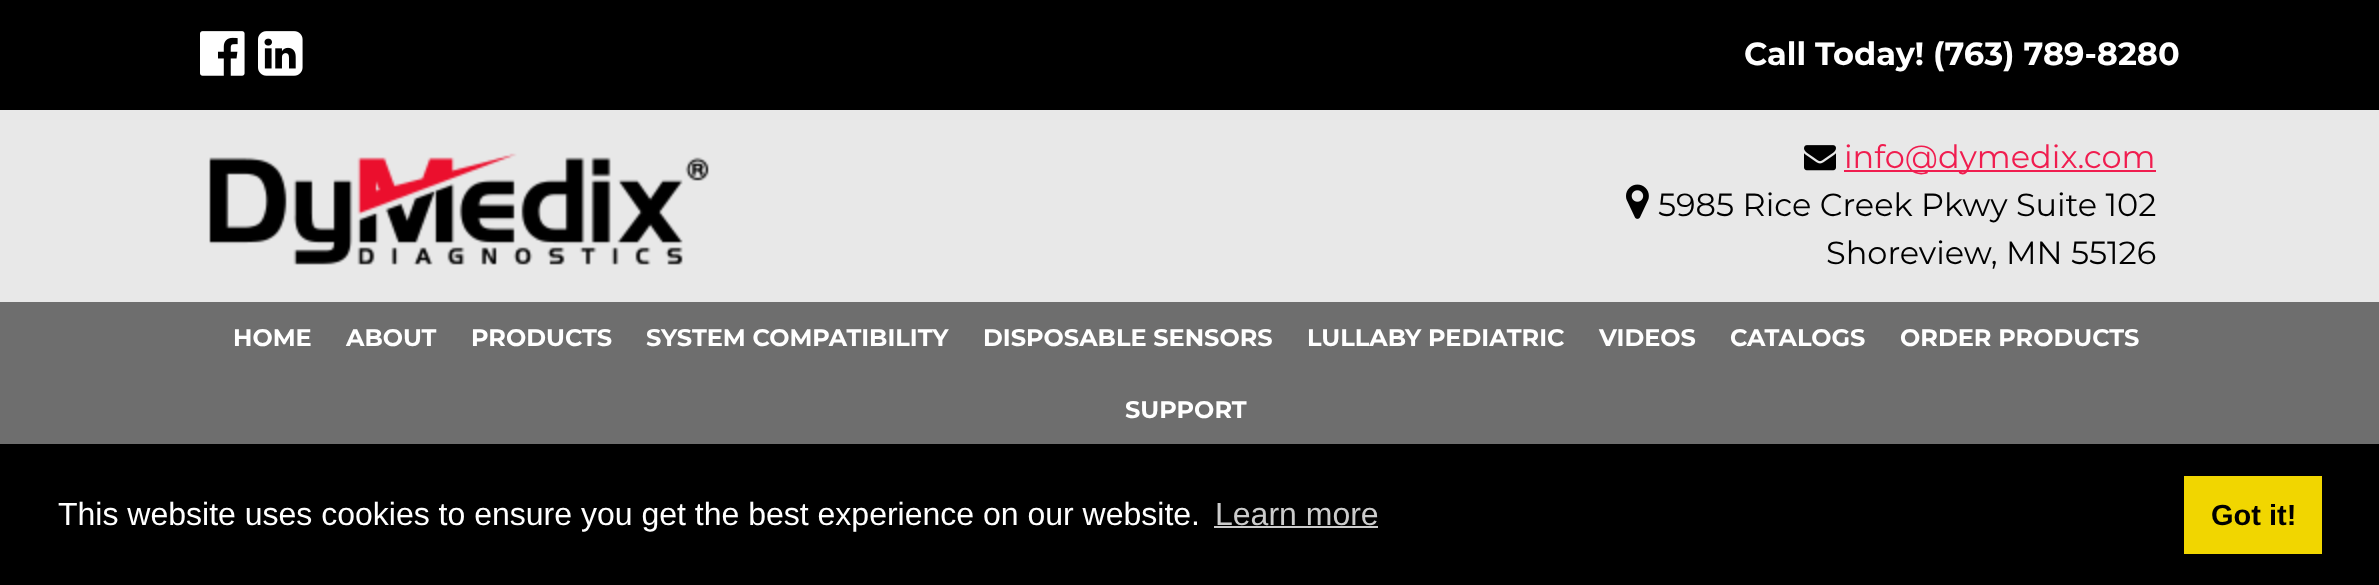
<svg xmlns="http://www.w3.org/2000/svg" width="2379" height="585">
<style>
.a{font:bold 32px Montserrat;fill:#fff}
.b{font:100 32px Montserrat;fill:#f01d4f}
.c{font:100 32px Montserrat;fill:#000}
.d{font:bold 24px Montserrat;fill:#fff}
.e{font:32px Liberation Sans;fill:#fff}
.f{font:32px Liberation Sans;fill:#ccc}
.g{font:bold 29px Liberation Sans;fill:#000}
</style>
<rect width="100%" height="100%" fill="#000"/>
<image href="1.png" x="200" y="31" width="45" height="45"/>
<image href="2.png" x="258" y="31" width="45" height="45"/>
<path fill="#e8e8e8" d="M0 110h2379v192H0z"/>
<image href="3.png" x="209" y="153" width="500" height="112"/>
<image href="4.png" x="1804" y="145" width="32" height="26"/>
<path fill="#f01d4f" d="M1844 170h312v2H1844z"/>
<image href="5.png" x="1626" y="184" width="23" height="35"/>
<path fill="#6e6e6e" d="M0 302h2379v142H0z"/>
<path fill="#ccc" d="M1214 526h164v2H1214z"/>
<path fill="#f1d600" d="M2184 476h138v78H2184z"/>
<text class="a" x="1744" y="65">Call Today! (763) 789-8280</text>
<text class="b" x="1844" y="168">info@dymedix.com</text>
<text class="c" x="1658" y="216">5985 Rice Creek Pkwy Suite 102</text>
<text class="c" x="1826" y="264">Shoreview, MN 55126</text>
<text class="d" x="233" y="346">HOME</text>
<text class="d" x="346" y="346">ABOUT</text>
<text class="d" x="471" y="346">PRODUCTS</text>
<text class="d" x="646" y="346">SYSTEM COMPATIBILITY</text>
<text class="d" x="983" y="346">DISPOSABLE SENSORS</text>
<text class="d" x="1307" y="346">LULLABY PEDIATRIC</text>
<text class="d" x="1599" y="346">VIDEOS</text>
<text class="d" x="1730" y="346">CATALOGS</text>
<text class="d" x="1900" y="346">ORDER PRODUCTS</text>
<text class="d" x="1125" y="418">SUPPORT</text>
<text class="e" x="58" y="525">This website uses cookies to ensure you get the best experience on our website.</text>
<text class="f" x="1215" y="525">Learn more</text>
<text class="g" x="2211" y="525">Got it!</text>
</svg>
